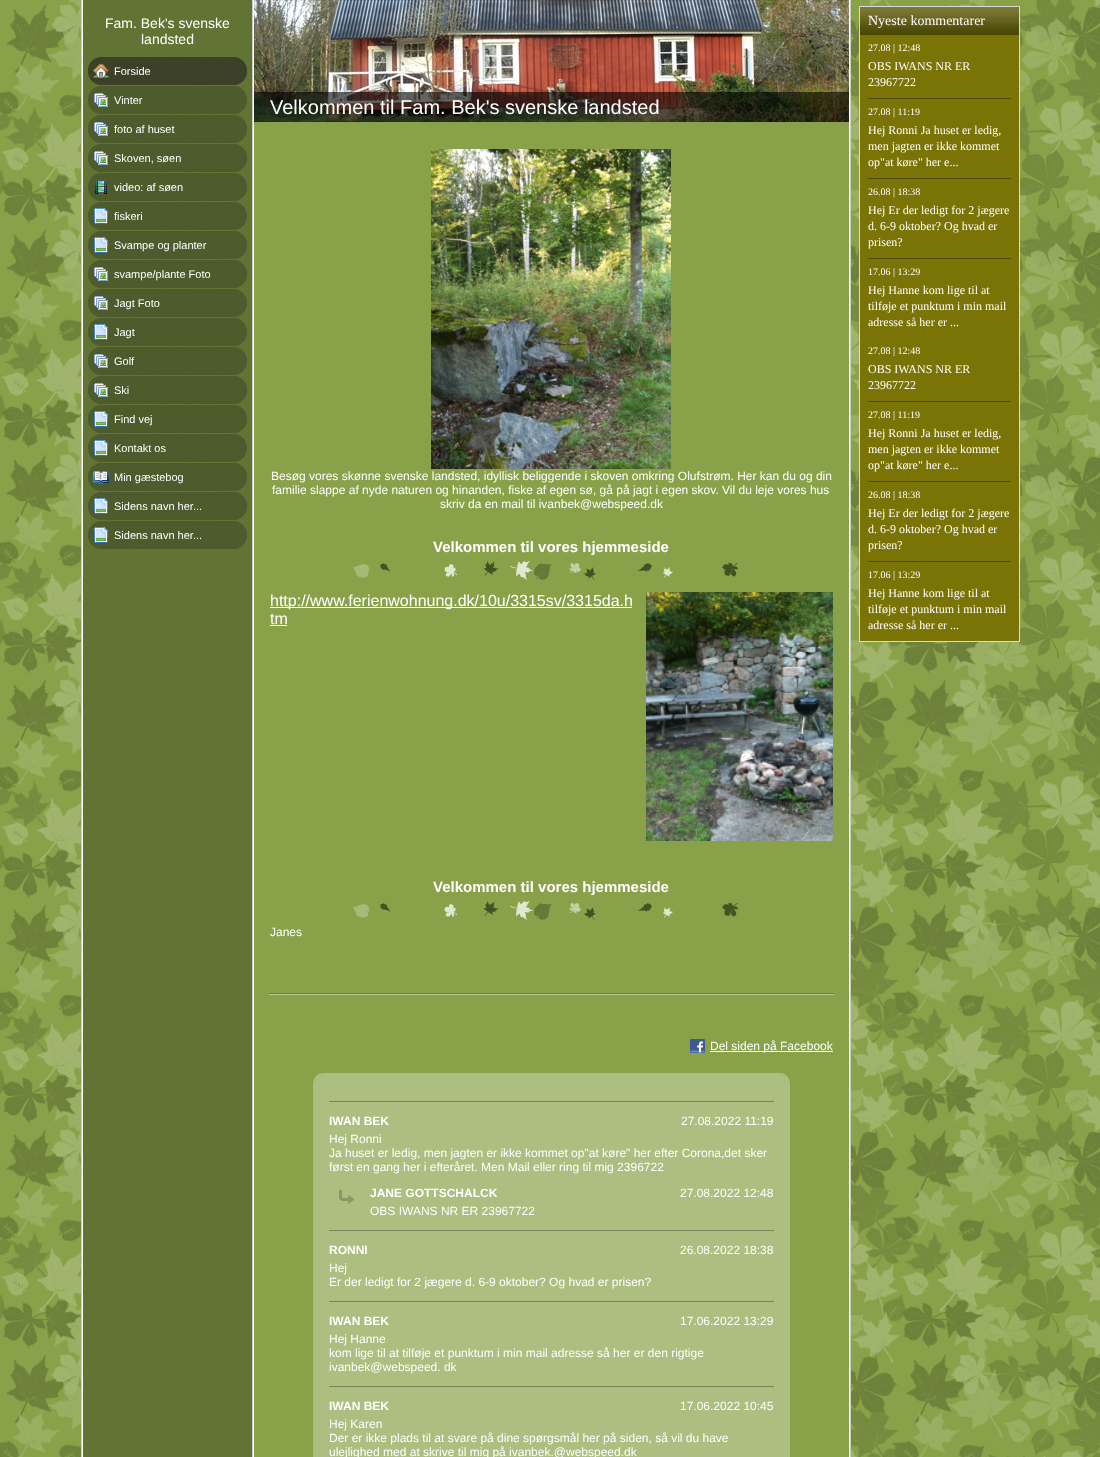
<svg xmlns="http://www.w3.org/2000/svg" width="1100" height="1457">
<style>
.a{font:14px Liberation Sans;fill:#fff}
.b{font:11px Liberation Sans;fill:#fff}
.c{font:20px Liberation Sans;fill:#fff}
.d{font:12px Liberation Sans;fill:#fff}
.e{font:bold 15px Liberation Sans;fill:#fff}
.f{font:16px Liberation Sans;fill:#fff}
.g{font:bold 12px Liberation Sans;fill:#fff}
.h{font:14px Liberation Serif;fill:#fff}
.i{font:10px Liberation Serif;fill:#fff}
.j{font:12px Liberation Serif;fill:#fff}
</style>
<rect width="100%" height="100%" fill="#89a249"/>
<image href="1.png" x="0" y="0" width="1100" height="1457"/>
<path fill="#fff" d="M82 0h768v1457H82z"/>
<path fill="#ccc" d="M81 0h1v1457H81z"/>
<path fill="#617433" d="M83 0h169v1457H83z"/>
<image href="2.png" x="88" y="57" width="159" height="28"/>
<image href="3.png" x="93" y="64" width="16" height="14"/>
<image href="4.png" x="88" y="86" width="159" height="28"/>
<image href="5.png" x="94" y="93" width="14" height="14"/>
<image href="4.png" x="88" y="115" width="159" height="28"/>
<image href="5.png" x="94" y="122" width="14" height="14"/>
<image href="4.png" x="88" y="144" width="159" height="28"/>
<image href="5.png" x="94" y="151" width="14" height="14"/>
<image href="4.png" x="88" y="173" width="159" height="28"/>
<image href="6.png" x="95" y="179" width="12" height="15"/>
<image href="4.png" x="88" y="202" width="159" height="28"/>
<image href="7.png" x="94" y="208" width="14" height="16"/>
<image href="4.png" x="88" y="231" width="159" height="28"/>
<image href="7.png" x="94" y="237" width="14" height="16"/>
<image href="4.png" x="88" y="260" width="159" height="28"/>
<image href="5.png" x="94" y="267" width="14" height="14"/>
<image href="4.png" x="88" y="289" width="159" height="28"/>
<image href="5.png" x="94" y="296" width="14" height="14"/>
<image href="4.png" x="88" y="318" width="159" height="28"/>
<image href="7.png" x="94" y="324" width="14" height="16"/>
<image href="4.png" x="88" y="347" width="159" height="28"/>
<image href="5.png" x="94" y="354" width="14" height="14"/>
<image href="4.png" x="88" y="376" width="159" height="28"/>
<image href="5.png" x="94" y="383" width="14" height="14"/>
<image href="4.png" x="88" y="405" width="159" height="28"/>
<image href="7.png" x="94" y="411" width="14" height="16"/>
<image href="4.png" x="88" y="434" width="159" height="28"/>
<image href="7.png" x="94" y="440" width="14" height="16"/>
<image href="4.png" x="88" y="463" width="159" height="28"/>
<image href="8.png" x="93" y="471" width="16" height="13"/>
<image href="4.png" x="88" y="492" width="159" height="28"/>
<image href="7.png" x="94" y="498" width="14" height="16"/>
<image href="4.png" x="88" y="521" width="159" height="28"/>
<image href="7.png" x="94" y="527" width="14" height="16"/>
<path fill="#ccc" d="M252 0h1v1457H252z"/>
<path fill="#89a249" d="M254 122h595v1335H254z"/>
<image href="9.png" x="254" y="0" width="595" height="122"/>
<path fill="#00000099" d="M254 92h595v30H254z"/>
<image href="10.png" x="431" y="149" width="240" height="320"/>
<image href="11.png" x="352" y="561" width="387" height="19"/>
<path fill="#fff" d="M270 607h362v1H270z"/>
<path fill="#fff" d="M270 625h17v1H270z"/>
<image href="12.png" x="646" y="592" width="187" height="249"/>
<image href="11.png" x="352" y="901" width="387" height="19"/>
<image href="13.png" x="269" y="993" width="565" height="2"/>
<image href="14.png" x="690" y="1039" width="15" height="14"/>
<path fill="#fff" d="M710 1051h123v1H710z"/>
<rect fill="#acbe80" x="313" y="1073" width="477" height="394" rx="10"/>
<path fill="#78855a" d="M329 1101h445v1H329z"/>
<image href="15.png" x="339" y="1190" width="16" height="14"/>
<path fill="#78855a" d="M329 1230h445v1H329z"/>
<path fill="#78855a" d="M329 1301h445v1H329z"/>
<path fill="#78855a" d="M329 1386h445v1H329z"/>
<path fill="#ccc" d="M850 0h1v1457H850z"/>
<path fill="#7a7306" stroke="#dadada" d="M859.5 6.5h160v635H859.5z"/>
<image href="16.png" x="860" y="7" width="159" height="28"/>
<image href="17.png" x="868" y="98" width="143" height="1"/>
<image href="17.png" x="868" y="178" width="143" height="1"/>
<image href="17.png" x="868" y="258" width="143" height="1"/>
<image href="17.png" x="868" y="401" width="143" height="1"/>
<image href="17.png" x="868" y="481" width="143" height="1"/>
<image href="17.png" x="868" y="561" width="143" height="1"/>
<text class="a" x="105" y="28">Fam. Bek's svenske</text>
<text class="a" x="141" y="44">landsted</text>
<text class="b" x="114" y="75">Forside</text>
<text class="b" x="114" y="104">Vinter</text>
<text class="b" x="114" y="133">foto af huset</text>
<text class="b" x="114" y="162">Skoven, søen</text>
<text class="b" x="114" y="191">video: af søen</text>
<text class="b" x="114" y="220">fiskeri</text>
<text class="b" x="114" y="249">Svampe og planter</text>
<text class="b" x="114" y="278">svampe/plante Foto</text>
<text class="b" x="114" y="307">Jagt Foto</text>
<text class="b" x="114" y="336">Jagt</text>
<text class="b" x="114" y="365">Golf</text>
<text class="b" x="114" y="394">Ski</text>
<text class="b" x="114" y="423">Find vej</text>
<text class="b" x="114" y="452">Kontakt os</text>
<text class="b" x="114" y="481">Min gæstebog</text>
<text class="b" x="114" y="510">Sidens navn her...</text>
<text class="b" x="114" y="539">Sidens navn her...</text>
<text class="c" x="270" y="114">Velkommen til Fam. Bek's svenske landsted</text>
<text class="d" x="271" y="480">Besøg vores skønne svenske landsted, idyllisk beliggende i skoven omkring Olufstrøm. Her kan du og din</text>
<text class="d" x="272" y="494">familie slappe af nyde naturen og hinanden, fiske af egen sø, gå på jagt i egen skov. Vil du leje vores hus</text>
<text class="d" x="440" y="508">skriv da en mail til ivanbek@webspeed.dk</text>
<text class="e" x="433" y="552">Velkommen til vores hjemmeside</text>
<text class="f" x="270" y="606">http://www.ferienwohnung.dk/10u/3315sv/3315da.h</text>
<text class="f" x="270" y="624">tm</text>
<text class="e" x="433" y="892">Velkommen til vores hjemmeside</text>
<text class="d" x="270" y="936">Janes</text>
<text class="d" x="710" y="1050">Del siden på Facebook</text>
<text class="g" x="329" y="1125">IWAN BEK</text>
<text class="d" x="681" y="1125">27.08.2022 11:19</text>
<text class="d" x="329" y="1143">Hej Ronni</text>
<text class="d" x="329" y="1157">Ja huset er ledig, men jagten er ikke kommet op"at køre" her efter Corona,det sker</text>
<text class="d" x="329" y="1171">først en gang her i efteråret. Men Mail eller ring til mig 2396722</text>
<text class="g" x="370" y="1197">JANE GOTTSCHALCK</text>
<text class="d" x="680" y="1197">27.08.2022 12:48</text>
<text class="d" x="370" y="1215">OBS IWANS NR ER 23967722</text>
<text class="g" x="329" y="1254">RONNI</text>
<text class="d" x="680" y="1254">26.08.2022 18:38</text>
<text class="d" x="329" y="1272">Hej</text>
<text class="d" x="329" y="1286">Er der ledigt for 2 jægere d. 6-9 oktober? Og hvad er prisen?</text>
<text class="g" x="329" y="1325">IWAN BEK</text>
<text class="d" x="680" y="1325">17.06.2022 13:29</text>
<text class="d" x="329" y="1343">Hej Hanne</text>
<text class="d" x="329" y="1357">kom lige til at tilføje et punktum i min mail adresse så her er den rigtige</text>
<text class="d" x="329" y="1371">ivanbek@webspeed. dk</text>
<text class="g" x="329" y="1410">IWAN BEK</text>
<text class="d" x="680" y="1410">17.06.2022 10:45</text>
<text class="d" x="329" y="1428">Hej Karen</text>
<text class="d" x="329" y="1442">Der er ikke plads til at svare på dine spørgsmål her på siden, så vil du have</text>
<text class="d" x="329" y="1456">ulejlighed med at skrive til mig på ivanbek.@webspeed.dk</text>
<text class="h" x="868" y="25">Nyeste kommentarer</text>
<text class="i" x="868" y="51">27.08 | 12:48</text>
<text class="j" x="868" y="70">OBS IWANS NR ER</text>
<text class="j" x="868" y="86">23967722</text>
<text class="i" x="868" y="115">27.08 | 11:19</text>
<text class="j" x="868" y="134">Hej Ronni Ja huset er ledig,</text>
<text class="j" x="868" y="150">men jagten er ikke kommet</text>
<text class="j" x="868" y="166">op"at køre" her e...</text>
<text class="i" x="868" y="195">26.08 | 18:38</text>
<text class="j" x="868" y="214">Hej Er der ledigt for 2 jægere</text>
<text class="j" x="868" y="230">d. 6-9 oktober? Og hvad er</text>
<text class="j" x="868" y="246">prisen?</text>
<text class="i" x="868" y="275">17.06 | 13:29</text>
<text class="j" x="868" y="294">Hej Hanne kom lige til at</text>
<text class="j" x="868" y="310">tilføje et punktum i min mail</text>
<text class="j" x="868" y="326">adresse så her er ...</text>
<text class="i" x="868" y="354">27.08 | 12:48</text>
<text class="j" x="868" y="373">OBS IWANS NR ER</text>
<text class="j" x="868" y="389">23967722</text>
<text class="i" x="868" y="418">27.08 | 11:19</text>
<text class="j" x="868" y="437">Hej Ronni Ja huset er ledig,</text>
<text class="j" x="868" y="453">men jagten er ikke kommet</text>
<text class="j" x="868" y="469">op"at køre" her e...</text>
<text class="i" x="868" y="498">26.08 | 18:38</text>
<text class="j" x="868" y="517">Hej Er der ledigt for 2 jægere</text>
<text class="j" x="868" y="533">d. 6-9 oktober? Og hvad er</text>
<text class="j" x="868" y="549">prisen?</text>
<text class="i" x="868" y="578">17.06 | 13:29</text>
<text class="j" x="868" y="597">Hej Hanne kom lige til at</text>
<text class="j" x="868" y="613">tilføje et punktum i min mail</text>
<text class="j" x="868" y="629">adresse så her er ...</text>
</svg>
